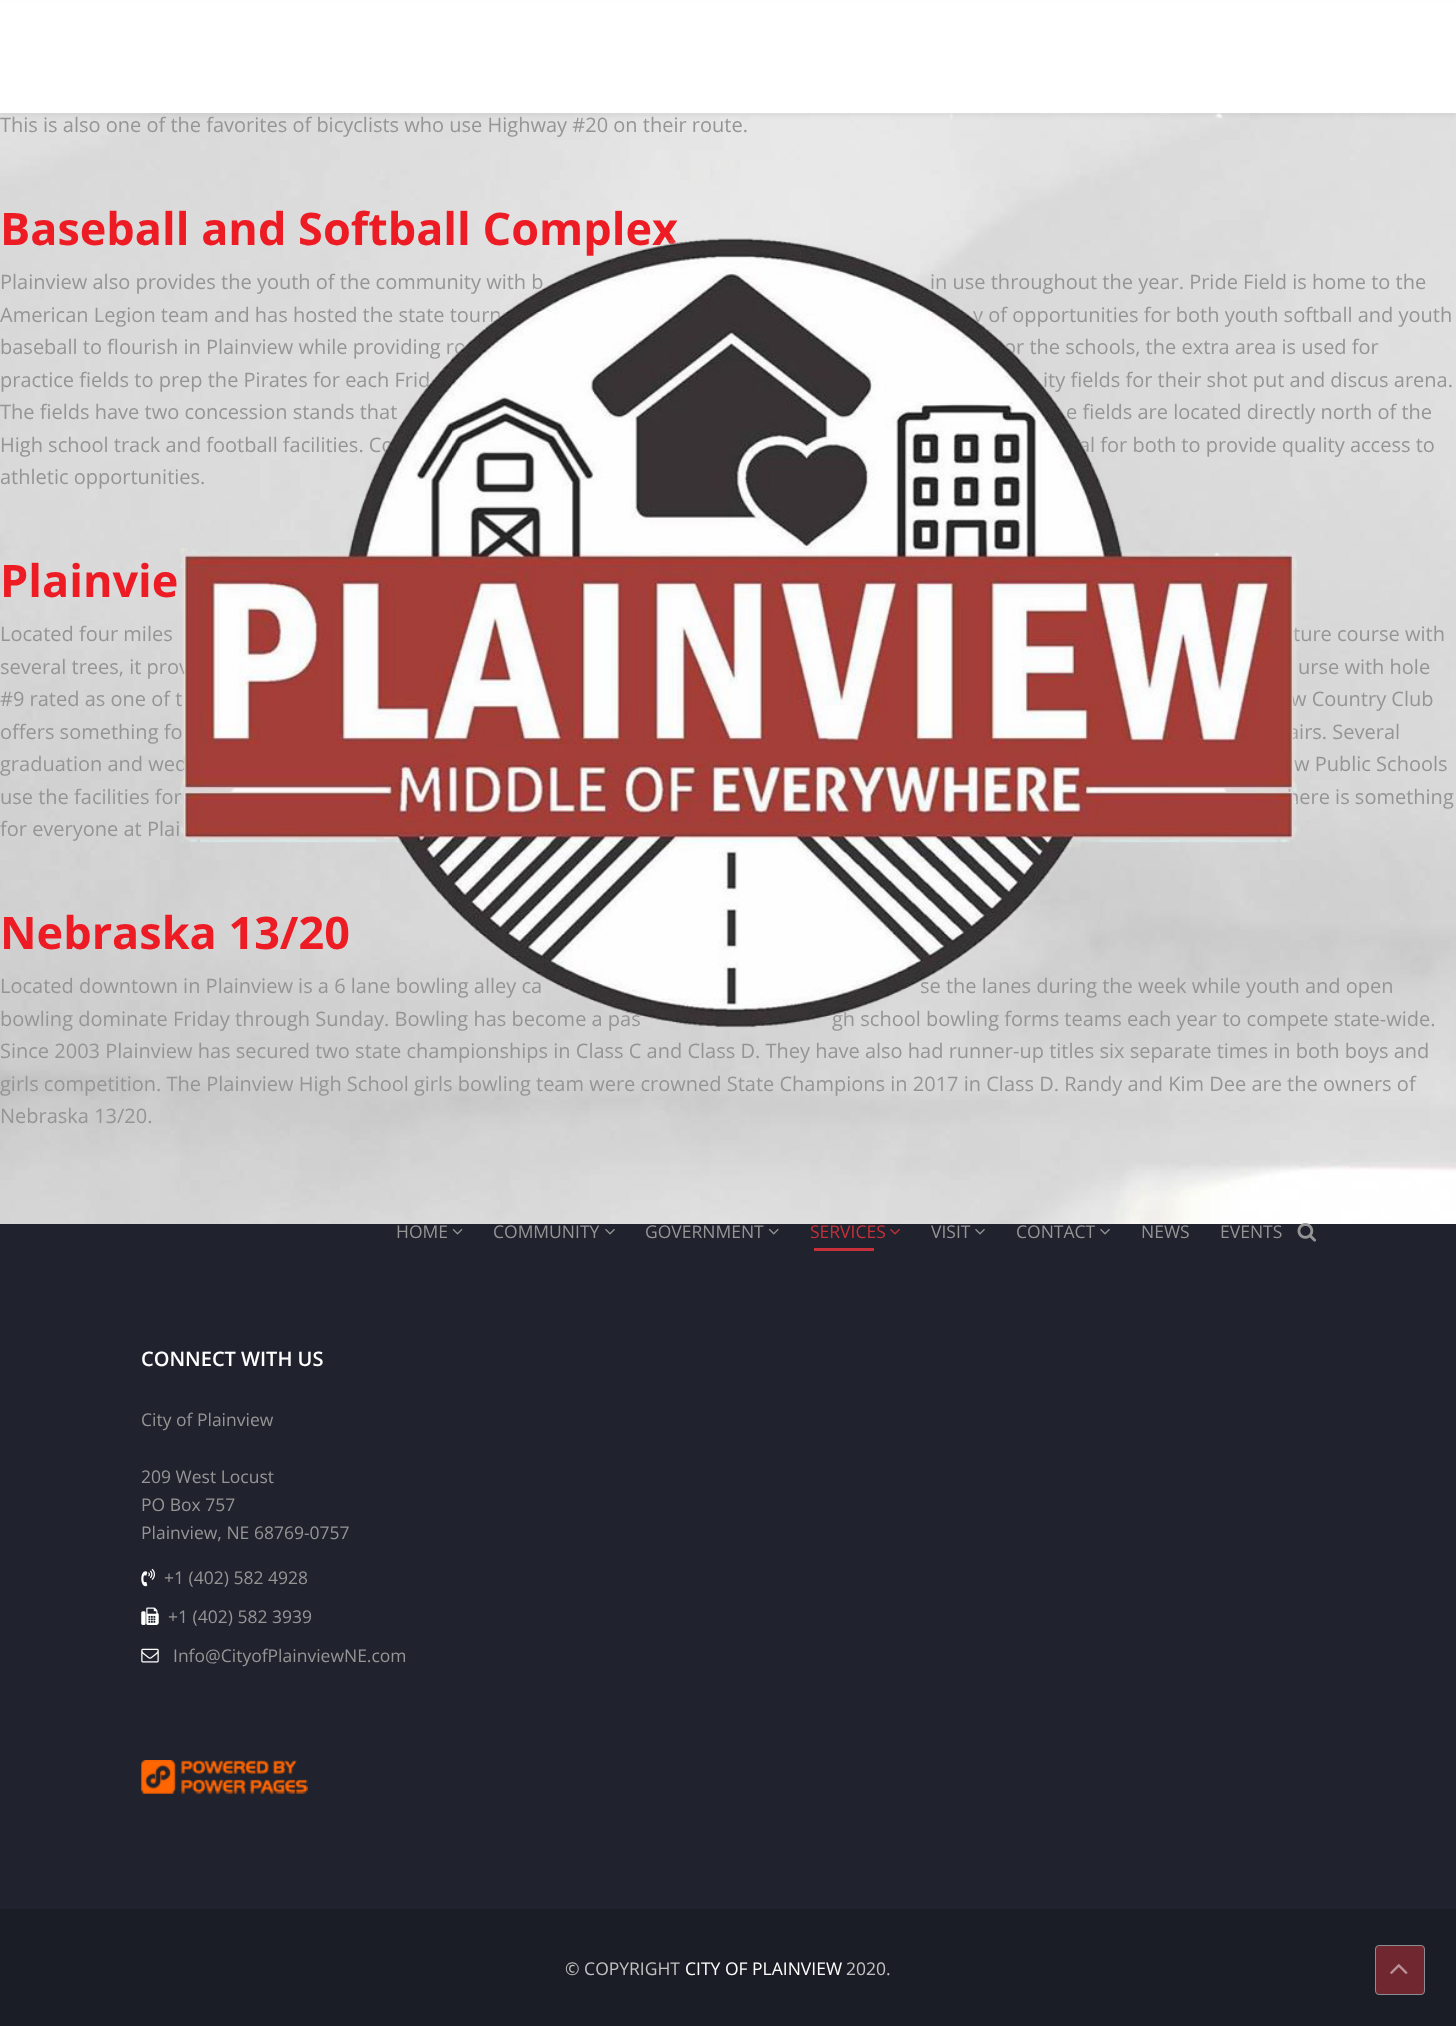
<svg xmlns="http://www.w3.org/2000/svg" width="1456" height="2026">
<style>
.a{font:20px Open Sans;fill:#959595}
.b{font:bold 45px Open Sans;fill:#ed1c24}
.c{font:17.5px Open Sans;fill:#959595}
.d{font:17.5px Open Sans;fill:#c7303a}
.e{font:600 20px Open Sans;fill:#fff}
.f{font:17.5px Open Sans;fill:#c2c2c2}
.g{font:17.5px Open Sans;fill:#fff}
</style>
<rect width="100%" height="100%" fill="#fff"/>
<image href="1.png" x="0" y="113" width="1456" height="1111"/>
<path fill="#0000000d" filter="blur(2px)" d="M0 4h1456v112H0z"/>
<path fill="#fff" d="M0 2h1456v111H0z"/>
<path fill="#20232e" d="M0 1224h1456v685H0z"/>
<image href="3.png" x="452" y="1228" width="11" height="7"/>
<image href="4.png" x="605" y="1229" width="10" height="6"/>
<image href="5.png" x="768" y="1228" width="11" height="7"/>
<image href="6.png" x="890" y="1229" width="10" height="6"/>
<path fill="#c7303a" d="M814 1248h60v3H814z"/>
<image href="4.png" x="975" y="1229" width="10" height="6"/>
<image href="4.png" x="1100" y="1229" width="10" height="6"/>
<image href="7.png" x="1297" y="1223" width="19" height="19"/>
<image href="8.png" x="141" y="1568" width="14" height="19"/>
<image href="9.png" x="141" y="1607" width="18" height="18"/>
<image href="10.png" x="141" y="1648" width="18" height="15"/>
<image href="11.png" x="141" y="1760" width="167" height="34"/>
<path fill="#1b1d26" d="M0 1909h1456v117H0z"/>
<rect fill="#712730" stroke="#8d8e93" x="1375.5" y="1945.5" width="49" height="49" rx="3.5"/>
<image href="12.png" x="1390" y="1964" width="18" height="10"/>
<text class="a" x="0" y="132">This is also one of the favorites of bicyclists who use Highway #20 on their route.</text>
<text class="b" x="0" y="245">Baseball and Softball Complex</text>
<text class="a" x="0" y="289">Plainview also provides the youth of the community with b</text>
<text class="a" x="930" y="289">in use throughout the year. Pride Field is home to the</text>
<text class="a" x="0" y="322">American Legion team and has hosted the state tourn</text>
<text class="a" x="973" y="322">y of opportunities for both youth softball and youth</text>
<text class="a" x="0" y="354">baseball to flourish in Plainview while providing ro</text>
<text class="a" x="1004" y="354">or the schools, the extra area is used for</text>
<text class="a" x="0" y="387">practice fields to prep the Pirates for each Frid</text>
<text class="a" x="1043" y="387">ity fields for their shot put and discus arena.</text>
<text class="a" x="0" y="419">The fields have two concession stands that</text>
<text class="a" x="1066" y="419">e fields are located directly north of the</text>
<text class="a" x="0" y="452">High school track and football facilities. Co</text>
<text class="a" x="1079" y="452">al for both to provide quality access to</text>
<text class="a" x="0" y="484">athletic opportunities.</text>
<text class="b" x="0" y="597">Plainvie</text>
<text class="a" x="0" y="641">Located four miles</text>
<text class="a" x="1293" y="641">ture course with</text>
<text class="a" x="0" y="674">several trees, it prov</text>
<text class="a" x="1298" y="674">urse with hole</text>
<text class="a" x="0" y="706">#9 rated as one of t</text>
<text class="a" x="1291" y="706">w Country Club</text>
<text class="a" x="0" y="739">offers something fo</text>
<text class="a" x="1288" y="739">airs. Several</text>
<text class="a" x="0" y="771">graduation and wed</text>
<text class="a" x="1294" y="771">w Public Schools</text>
<text class="a" x="0" y="804">use the facilities for</text>
<text class="a" x="1287" y="804">here is something</text>
<text class="a" x="0" y="836">for everyone at Plai</text>
<text class="b" x="0" y="949">Nebraska 13/20</text>
<text class="a" x="0" y="993">Located downtown in Plainview is a 6 lane bowling alley ca</text>
<text class="a" x="920" y="993">se the lanes during the week while youth and open</text>
<text class="a" x="0" y="1026">bowling dominate Friday through Sunday. Bowling has become a pas</text>
<text class="a" x="832" y="1026">gh school bowling forms teams each year to compete state-wide.</text>
<text class="a" x="0" y="1058">Since 2003 Plainview has secured two state championships in Class C and Class D. They have also had runner-up titles six separate times in both boys and</text>
<text class="a" x="0" y="1091">girls competition. The Plainview High School girls bowling team were crowned State Champions in 2017 in Class D. Randy and Kim Dee are the owners of</text>
<text class="a" x="0" y="1123">Nebraska 13/20.</text>
<image href="2.png" x="180" y="113" width="1117" height="915"/>
<text class="c" x="396" y="1238">HOME</text>
<text class="c" x="493" y="1238">COMMUNITY</text>
<text class="c" x="645" y="1238">GOVERNMENT</text>
<text class="d" x="810" y="1238">SERVICES</text>
<text class="c" x="931" y="1238">VISIT</text>
<text class="c" x="1016" y="1238">CONTACT</text>
<text class="c" x="1141" y="1238">NEWS</text>
<text class="c" x="1220" y="1238">EVENTS</text>
<text class="e" x="141" y="1366">CONNECT WITH US</text>
<text class="c" x="141" y="1426">City of Plainview</text>
<text class="c" x="141" y="1483">209 West Locust</text>
<text class="c" x="141" y="1511">PO Box 757</text>
<text class="c" x="141" y="1539">Plainview, NE 68769-0757</text>
<text class="c" x="164" y="1584">+1 (402) 582 4928</text>
<text class="c" x="168" y="1623">+1 (402) 582 3939</text>
<text class="c" x="173" y="1662">Info@CityofPlainviewNE.com</text>
<text class="f" x="565" y="1975">© COPYRIGHT</text>
<text class="g" x="685" y="1975">CITY OF PLAINVIEW</text>
<text class="f" x="846" y="1975">2020.</text>
</svg>
